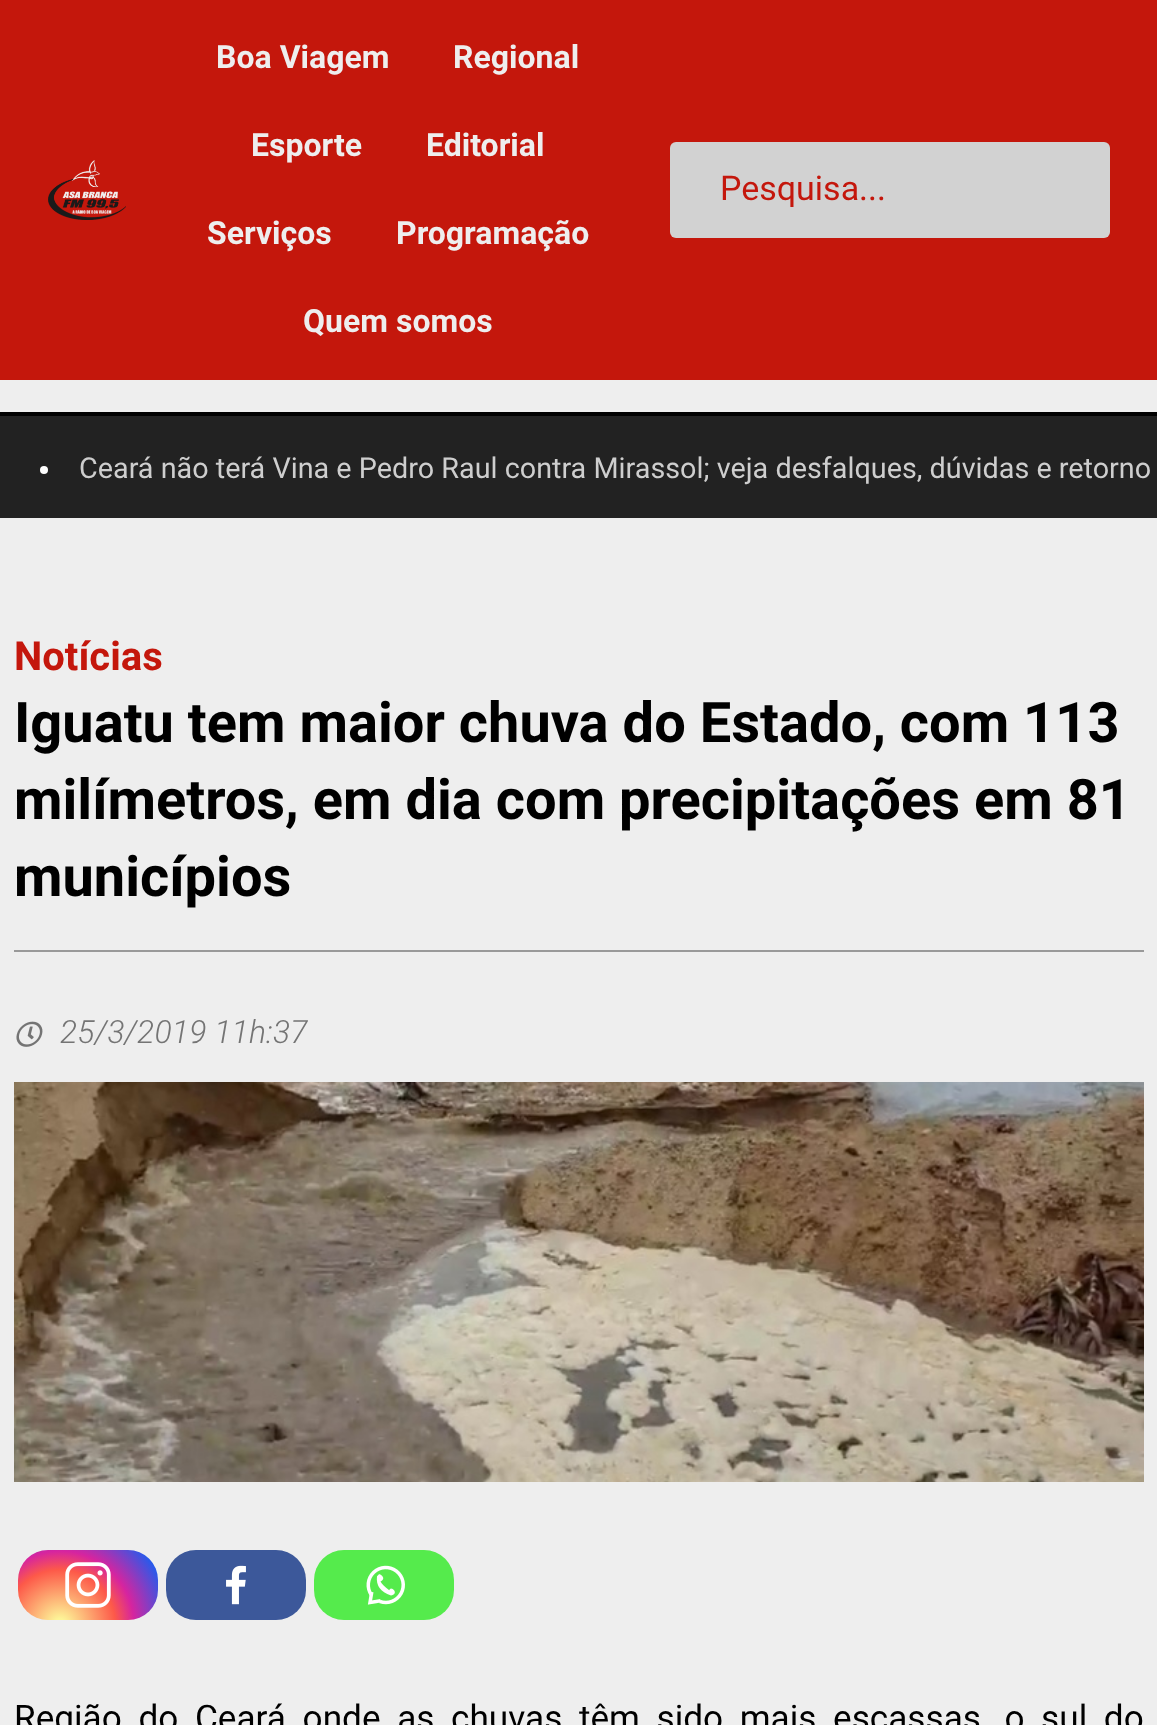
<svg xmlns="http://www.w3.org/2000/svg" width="1157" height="1725">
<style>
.a{font:bold 32px Roboto;fill:#eee}
.b{font:34px Roboto;fill:#c4170c}
.c{font:28.8px Roboto;fill:#cecece}
.d{font:bold 40px Roboto;fill:#c4170c}
.e{font:bold 56px Roboto;fill:#000}
.f{font:italic 300 32px Roboto;fill:#747474}
.g{font:35.2px Roboto;fill:#000}
</style>
<defs>
<radialGradient id="g1" gradientUnits="userSpaceOnUse" cx="60" cy="1625" r="123"><stop offset="0" stop-color="#fdf497"/><stop offset="0.05" stop-color="#fdf497"/><stop offset="0.45" stop-color="#fd5949"/><stop offset="0.6" stop-color="#d6249f"/><stop offset="0.9" stop-color="#285aeb"/></radialGradient>
</defs>
<rect width="100%" height="100%" fill="#eee"/>
<path fill="#c4170c" d="M0 0h1157v380H0z"/>
<image href="1.png" x="48" y="160" width="78" height="60"/>
<rect fill="#d2d2d2" x="670" y="142" width="440" height="96" rx="6"/>
<path fill="#000" d="M0 412h1157v4H0z"/>
<path fill="#222" d="M0 416h1157v102H0z"/>
<circle fill="#fff" cx="44" cy="470" r="4"/>
<path fill="#999" d="M14 950h1130v2H14z"/>
<image href="2.png" x="16" y="1021" width="27" height="26"/>
<image href="3.png" x="14" y="1082" width="1130" height="400"/>
<rect fill="url(#g1)" x="18" y="1550" width="140" height="70" rx="30"/>
<image href="4.png" x="65" y="1562" width="46" height="46"/>
<rect fill="#3c589a" x="166" y="1550" width="140" height="70" rx="30"/>
<image href="5.png" x="226" y="1565" width="20" height="40"/>
<rect fill="#55eb4c" x="314" y="1550" width="140" height="70" rx="30"/>
<image href="6.png" x="366" y="1565" width="39" height="40"/>
<text class="a" x="216" y="68">Boa Viagem</text>
<text class="a" x="453" y="68">Regional</text>
<text class="a" x="251" y="156">Esporte</text>
<text class="a" x="426" y="156">Editorial</text>
<text class="a" x="207" y="244">Serviços</text>
<text class="a" x="396" y="244">Programação</text>
<text class="a" x="303" y="332">Quem somos</text>
<text class="b" x="720" y="200">Pesquisa...</text>
<text class="c" x="79" y="478">Ceará não terá Vina e Pedro Raul contra Mirassol; veja desfalques, dúvidas e retorno</text>
<text class="d" x="14" y="670">Notícias</text>
<text class="e" x="14" y="742">Iguatu tem maior chuva do Estado, com 113</text>
<text class="e" x="14" y="819">milímetros, em dia com precipitações em 81</text>
<text class="e" x="14" y="896">municípios</text>
<text class="f" x="60" y="1043">25/3/2019 11h:37</text>
<text class="g" x="14" y="1730" word-spacing="7.9">Região do Ceará onde as chuvas têm sido mais escassas, o sul do</text>
</svg>
